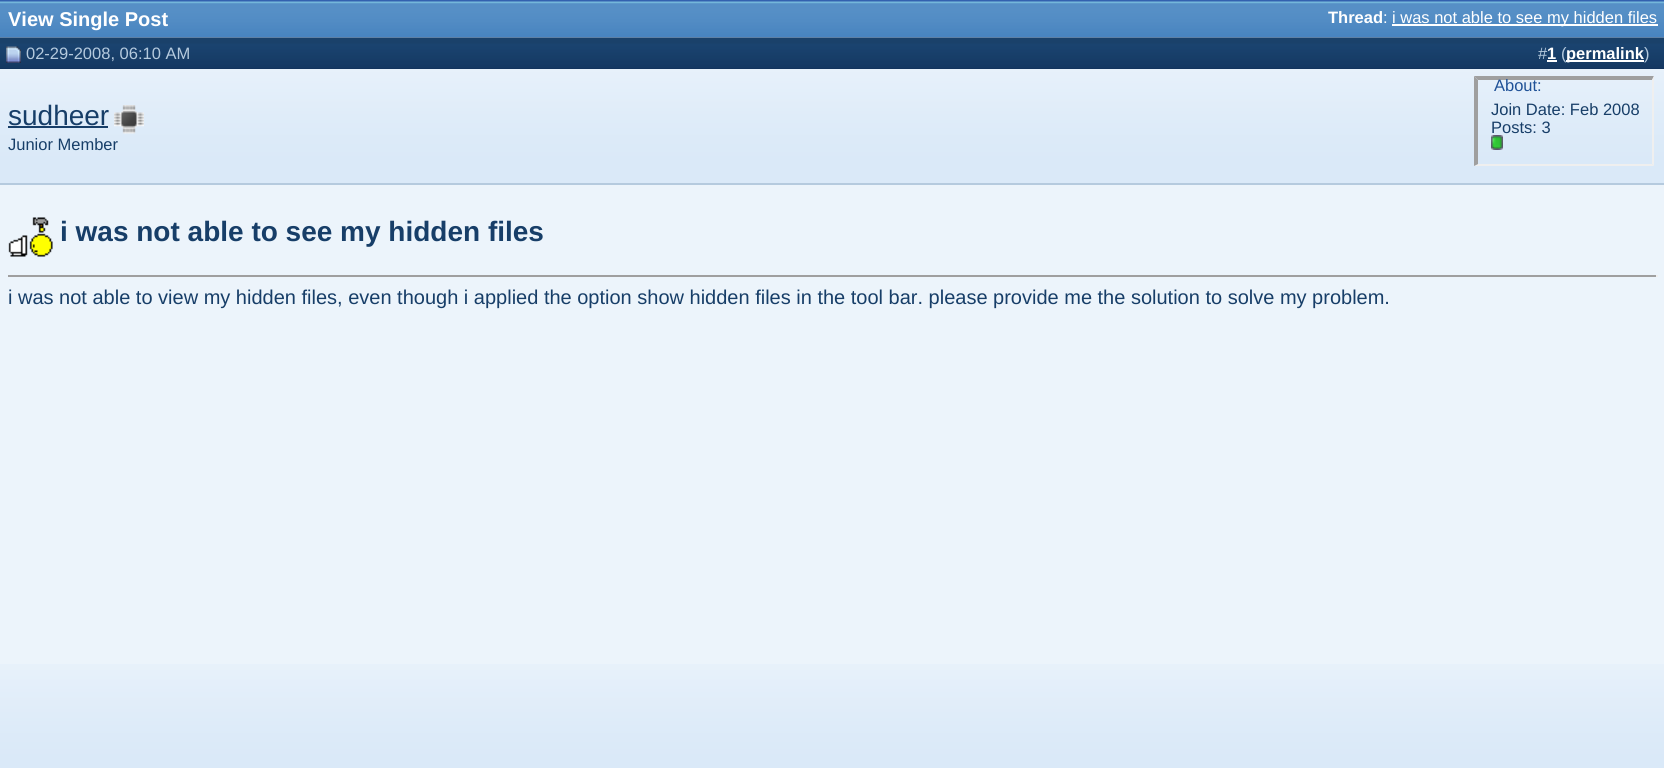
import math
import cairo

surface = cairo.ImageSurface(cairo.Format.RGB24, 1664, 768)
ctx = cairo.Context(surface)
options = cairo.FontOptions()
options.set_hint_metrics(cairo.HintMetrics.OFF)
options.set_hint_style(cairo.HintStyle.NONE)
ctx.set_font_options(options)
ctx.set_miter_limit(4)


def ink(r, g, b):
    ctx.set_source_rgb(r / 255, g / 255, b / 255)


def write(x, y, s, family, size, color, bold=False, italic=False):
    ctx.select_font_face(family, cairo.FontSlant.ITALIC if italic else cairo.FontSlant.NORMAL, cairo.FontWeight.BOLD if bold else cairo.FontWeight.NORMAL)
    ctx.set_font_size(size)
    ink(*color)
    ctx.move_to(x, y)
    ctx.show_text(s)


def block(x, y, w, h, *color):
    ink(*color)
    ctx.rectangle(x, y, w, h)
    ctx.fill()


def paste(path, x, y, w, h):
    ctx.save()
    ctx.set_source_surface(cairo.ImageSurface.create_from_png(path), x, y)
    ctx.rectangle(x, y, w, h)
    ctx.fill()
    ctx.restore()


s1 = dict(family="Liberation Sans", size=20, color=(255, 255, 255), bold=True)
s2 = dict(family="Liberation Sans", size=16.5, color=(255, 255, 255), bold=True)
s3 = dict(family="Liberation Sans", size=16.5, color=(255, 255, 255))
s4 = dict(family="Liberation Sans", size=16.5, color=(181, 202, 222))
s5 = dict(family="Liberation Sans", size=28, color=(23, 62, 104))
s6 = dict(family="Liberation Sans", size=16.5, color=(23, 62, 104))
s7 = dict(family="Liberation Sans", size=16.5, color=(31, 81, 151))
s8 = dict(family="Liberation Sans", size=28, color=(23, 62, 104), bold=True)
s9 = dict(family="Liberation Sans", size=20, color=(23, 62, 104))

ink(255, 255, 255)
ctx.paint()
paste("pic1.png", 0, 0, 1664, 38)
write(8, 26, "View Single Post", **s1)
write(1328, 23, "Thread", **s2)
write(1383, 23, ":", **s3)
block(1392, 24, 266, 2, 255, 255, 255)
write(1392, 23, "i was not able to see my hidden files", **s3)
block(0, 68, 1664, 1, 19, 52, 93)
paste("pic2.png", 0, 37, 1664, 31)
paste("pic3.png", 6, 46, 15, 17)
write(26, 59, "02-29-2008, 06:10 AM", **s4)
write(1538, 59, "#", **s4)
write(1547, 59, "1", **s2)
block(1547, 60, 10, 2, 255, 255, 255)
write(1561, 59, "(", **s4)
block(1566, 60, 78, 2, 255, 255, 255)
write(1566, 59, "permalink", **s2)
write(1644, 59, ")", **s4)
paste("pic4.png", 0, 69, 1664, 114)
block(0, 183, 1664, 2, 181, 202, 222)
write(8, 125, "sudheer", **s5)
block(8, 126, 100, 2, 23, 62, 104)
paste("pic5.png", 114, 105, 30, 29)
write(8, 150, "Junior Member", **s6)
ink(159, 159, 159)
ctx.new_path()
ctx.move_to(1474, 76)
ctx.line_to(1654, 76)
ctx.line_to(1652, 80)
ctx.line_to(1478, 80)
ctx.close_path()
ctx.fill()
ink(239, 239, 239)
ctx.new_path()
ctx.move_to(1654, 76)
ctx.line_to(1654, 166)
ctx.line_to(1652, 164)
ctx.line_to(1652, 80)
ctx.close_path()
ctx.fill()
ctx.new_path()
ctx.move_to(1654, 166)
ctx.line_to(1474, 166)
ctx.line_to(1478, 164)
ctx.line_to(1652, 164)
ctx.close_path()
ctx.fill()
ink(159, 159, 159)
ctx.new_path()
ctx.move_to(1474, 166)
ctx.line_to(1474, 76)
ctx.line_to(1478, 80)
ctx.line_to(1478, 164)
ctx.close_path()
ctx.fill()
write(1494, 91, "About:", **s7)
write(1491, 115, "Join Date: Feb 2008", **s6)
write(1491, 133, "Posts: 3", **s6)
paste("pic6.png", 1491, 135, 12, 15)
block(0, 185, 1664, 479, 236, 244, 251)
paste("pic7.png", 0, 664, 1664, 104)
paste("pic8.png", 8, 217, 45, 40)
write(60, 241, "i was not able to see my hidden files", **s8)
block(8, 275, 1650, 2, 159, 159, 159)
block(1656, 275, 2, 2, 238, 238, 238)
write(8, 304, "i was not able to view my hidden files, even though i applied the option show hidden files in the tool bar. please provide me the solution to solve my problem.", **s9)
surface.write_to_png("screenshot.png")
